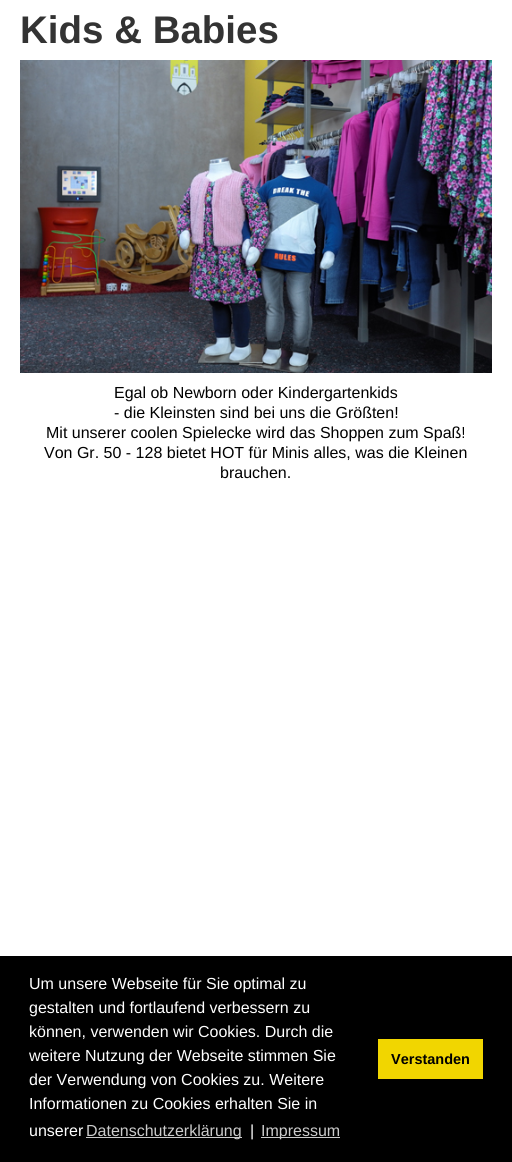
import math
import cairo

surface = cairo.ImageSurface(cairo.Format.RGB24, 512, 1162)
ctx = cairo.Context(surface)
options = cairo.FontOptions()
options.set_hint_metrics(cairo.HintMetrics.OFF)
options.set_hint_style(cairo.HintStyle.NONE)
ctx.set_font_options(options)
ctx.set_miter_limit(4)


def ink(r, g, b):
    ctx.set_source_rgb(r / 255, g / 255, b / 255)


def write(x, y, s, family, size, color, bold=False, italic=False):
    ctx.select_font_face(family, cairo.FontSlant.ITALIC if italic else cairo.FontSlant.NORMAL, cairo.FontWeight.BOLD if bold else cairo.FontWeight.NORMAL)
    ctx.set_font_size(size)
    ink(*color)
    ctx.move_to(x, y)
    ctx.show_text(s)


def block(x, y, w, h, *color):
    ink(*color)
    ctx.rectangle(x, y, w, h)
    ctx.fill()


def paste(path, x, y, w, h):
    ctx.save()
    ctx.set_source_surface(cairo.ImageSurface.create_from_png(path), x, y)
    ctx.rectangle(x, y, w, h)
    ctx.fill()
    ctx.restore()


s1 = dict(family="Liberation Sans", size=38.5, color=(51, 51, 51), bold=True)
s2 = dict(family="Liberation Sans", size=16, color=(0, 0, 0))
s3 = dict(family="Liberation Sans", size=16, color=(255, 255, 255))
s4 = dict(family="Liberation Sans", size=16, color=(204, 204, 204))
s5 = dict(family="Liberation Sans", size=14.5, color=(0, 0, 0), bold=True)

ink(255, 255, 255)
ctx.paint()
write(20, 43, "Kids & Babies", **s1)
paste("pic1.png", 20, 60, 472, 313)
write(114, 398, "Egal ob Newborn oder Kindergartenkids", **s2)
write(114, 418, "- die Kleinsten sind bei uns die Größten!", **s2)
write(46, 438, "Mit unserer coolen Spielecke wird das Shoppen zum Spaß!", **s2)
write(44, 458, "Von Gr. 50 - 128 bietet HOT für Minis alles, was die Kleinen", **s2)
write(220, 478, "brauchen.", **s2)
block(0, 956, 512, 206, 0, 0, 0)
write(29, 989, "Um unsere Webseite für Sie optimal zu", **s3)
write(29, 1013, "gestalten und fortlaufend verbessern zu", **s3)
write(29, 1037, "können, verwenden wir Cookies. Durch die", **s3)
write(29, 1061, "weitere Nutzung der Webseite stimmen Sie", **s3)
write(29, 1085, "der Verwendung von Cookies zu. Weitere", **s3)
write(29, 1109, "Informationen zu Cookies erhalten Sie in", **s3)
write(29, 1136, "unserer", **s3)
block(86, 1137, 156, 1, 204, 204, 204)
write(86, 1136, "Datenschutzerklärung", **s4)
write(250, 1136, "|", **s3)
block(261, 1137, 79, 1, 204, 204, 204)
write(261, 1136, "Impressum", **s4)
block(378, 1039, 105, 40, 241, 214, 0)
write(391, 1064, "Verstanden", **s5)
surface.write_to_png("screenshot.png")
